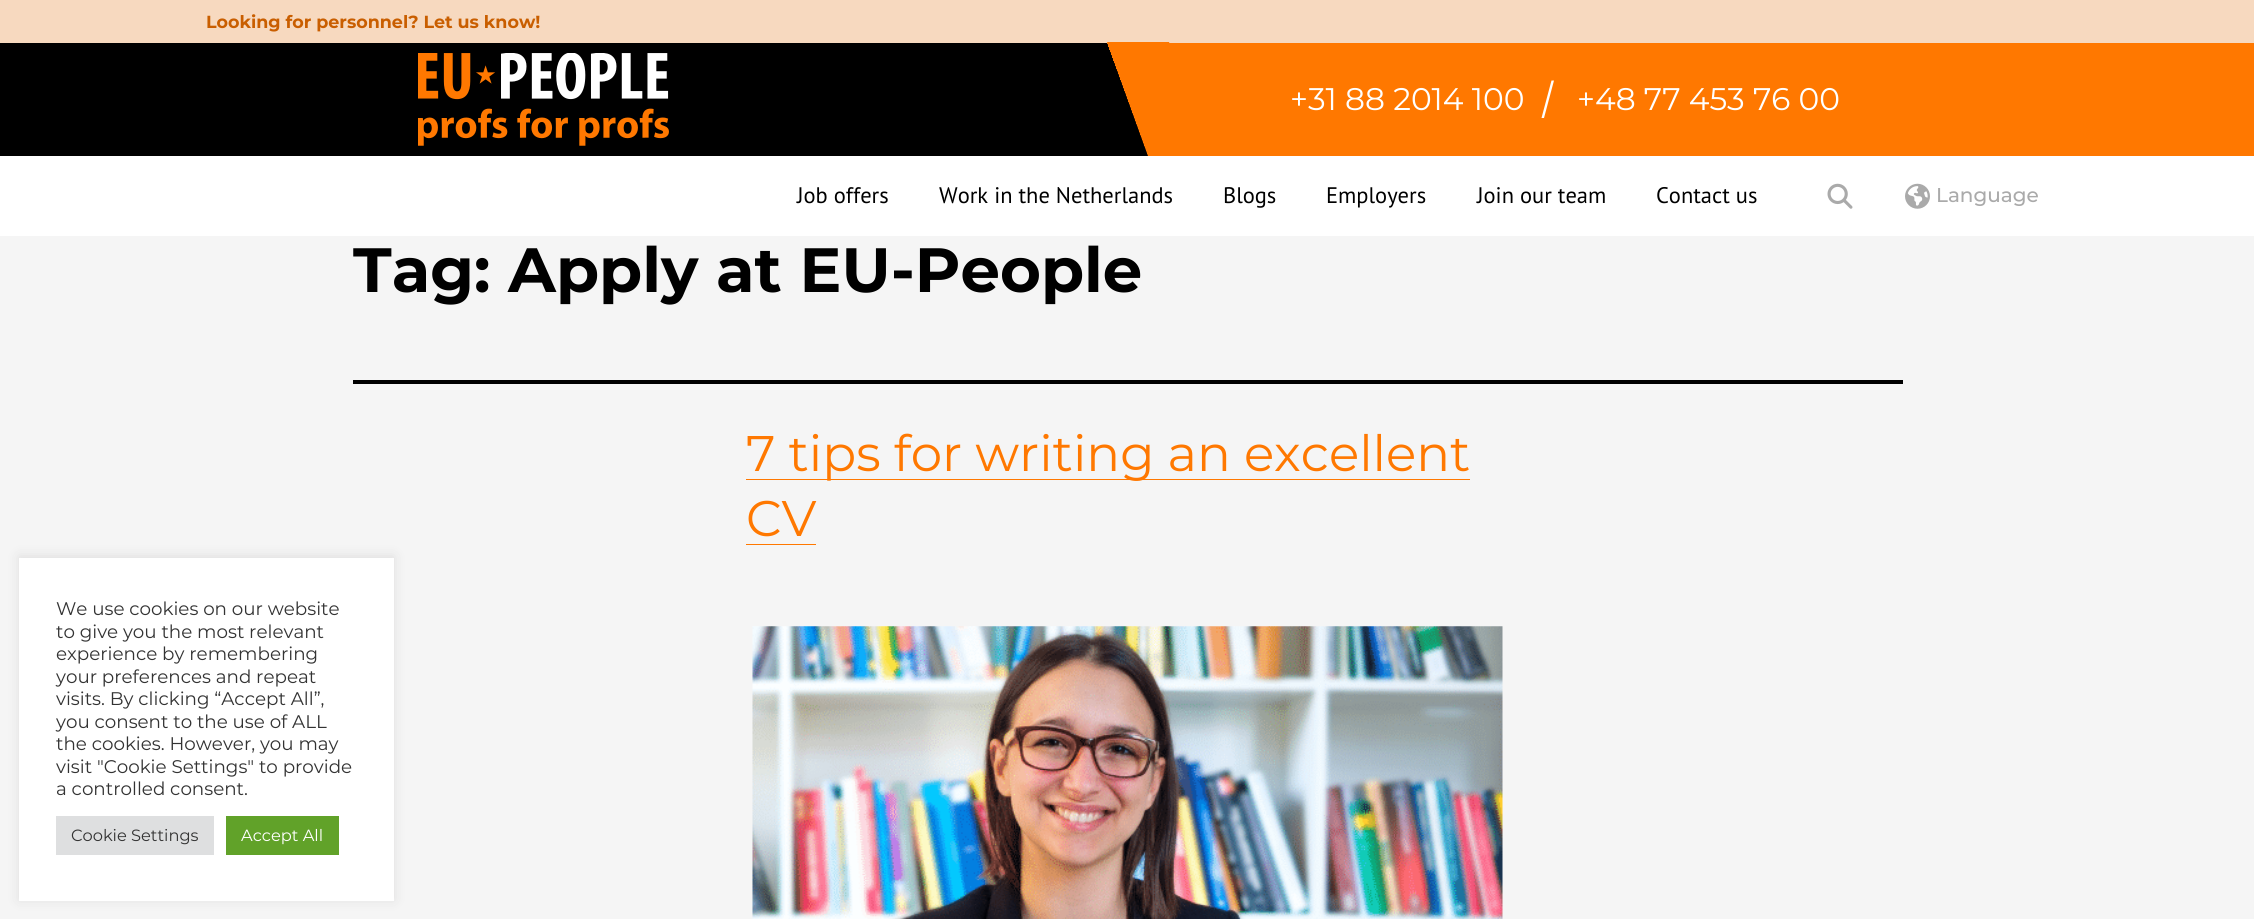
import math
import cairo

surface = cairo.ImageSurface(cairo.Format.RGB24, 2254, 919)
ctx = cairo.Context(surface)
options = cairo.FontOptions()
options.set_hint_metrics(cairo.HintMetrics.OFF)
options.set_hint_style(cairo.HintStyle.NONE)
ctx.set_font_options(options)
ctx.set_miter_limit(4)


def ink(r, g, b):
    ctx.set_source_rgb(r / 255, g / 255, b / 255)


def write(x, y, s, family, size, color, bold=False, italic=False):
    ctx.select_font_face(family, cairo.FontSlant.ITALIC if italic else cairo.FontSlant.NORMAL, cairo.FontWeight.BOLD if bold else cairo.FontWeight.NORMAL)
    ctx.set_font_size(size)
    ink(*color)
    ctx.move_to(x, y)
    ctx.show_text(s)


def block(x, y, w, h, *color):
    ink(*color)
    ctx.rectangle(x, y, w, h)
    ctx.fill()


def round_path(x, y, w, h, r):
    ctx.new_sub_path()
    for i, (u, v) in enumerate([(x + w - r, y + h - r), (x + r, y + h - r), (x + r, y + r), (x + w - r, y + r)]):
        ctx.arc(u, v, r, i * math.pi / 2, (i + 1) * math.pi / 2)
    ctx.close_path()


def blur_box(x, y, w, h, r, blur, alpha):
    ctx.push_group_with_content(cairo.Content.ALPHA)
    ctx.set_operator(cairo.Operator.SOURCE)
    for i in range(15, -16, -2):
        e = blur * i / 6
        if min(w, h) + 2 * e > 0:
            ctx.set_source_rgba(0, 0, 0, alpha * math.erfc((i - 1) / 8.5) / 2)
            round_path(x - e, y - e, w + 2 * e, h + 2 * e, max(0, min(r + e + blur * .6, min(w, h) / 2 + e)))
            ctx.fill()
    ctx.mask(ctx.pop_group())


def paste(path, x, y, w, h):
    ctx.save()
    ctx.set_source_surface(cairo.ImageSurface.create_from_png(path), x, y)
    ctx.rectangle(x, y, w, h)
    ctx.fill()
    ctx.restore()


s1 = dict(family="Montserrat", size=17.5, color=(201, 94, 0), bold=True)
s2 = dict(family="Montserrat", size=31.25, color=(255, 255, 255))
s3 = dict(family="PT Sans", size=22.5, color=(0, 0, 0))
s4 = dict(family="Montserrat Medium", size=20, color=(170, 170, 170))
s5 = dict(family="Montserrat", size=62.5, color=(0, 0, 0), bold=True)
s6 = dict(family="Montserrat", size=50, color=(255, 120, 0))
s7 = dict(family="Montserrat", size=18.3, color=(51, 51, 51))
s8 = dict(family="Montserrat", size=16.25, color=(51, 51, 51))
s9 = dict(family="Montserrat", size=16.25, color=(255, 255, 255))

ink(245, 245, 245)
ctx.paint()
block(0, 0, 2254, 43, 247, 217, 191)
write(206, 28, "Looking for personnel? Let us know!", **s1)
gradient = cairo.LinearGradient(114, 468, 2141, -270)
gradient.add_color_stop_rgba(0.5, 0, 0, 0, 1)
gradient.add_color_stop_rgba(0.5, 1, 0.471, 0, 1)
ctx.set_source(gradient)
ctx.rectangle(0, 43, 2254, 113)
ctx.fill()
ink(255, 120, 0)
ctx.new_path()
ctx.move_to(1107, 42)
ctx.line_to(1169, 42)
ctx.line_to(1211, 156)
ctx.line_to(1148, 156)
ctx.close_path()
ctx.fill()
paste("pic1.png", 418, 53, 251, 93)
write(1290, 110, "+31 88 2014 100", **s2)
ctx.new_path()
ctx.move_to(1551.5, 80.5)
ctx.line_to(1554, 80.5)
ctx.line_to(1544, 118)
ctx.line_to(1541.5, 118)
ctx.close_path()
ctx.fill()
write(1577, 110, "+48 77 453 76 00", **s2)
block(0, 156, 2254, 80, 255, 255, 255)
write(797, 203, "Job offers", **s3)
write(939, 203, "Work in the Netherlands", **s3)
write(1223, 203, "Blogs", **s3)
write(1326, 203, "Employers", **s3)
write(1477, 203, "Join our team", **s3)
write(1656, 203, "Contact us", **s3)
paste("pic2.png", 1827, 183, 26, 26)
paste("pic3.png", 1905, 183, 25, 26)
write(1936, 202, "Language", **s4)
block(353, 380, 1550, 4, 0, 0, 0)
write(353, 292, "Tag: Apply at EU-People", **s5)
block(746, 479, 724, 1, 255, 120, 0)
write(746, 471, "7 tips for writing an excellent", **s6)
write(746, 536, "CV", **s6)
block(746, 544, 70, 1, 255, 120, 0)
paste("pic4.png", 752, 626, 751, 293)
ink(172, 171, 171)
blur_box(19, 556, 375, 344, 0, 6, 0.3)
block(19, 558, 375, 343, 255, 255, 255)
write(56, 615, "We use cookies on our website", **s7)
write(56, 638, "to give you the most relevant", **s7)
write(56, 660, "experience by remembering", **s7)
write(56, 683, "your preferences and repeat", **s7)
write(56, 705, "visits. By clicking “Accept All”,", **s7)
write(56, 728, "you consent to the use of ALL", **s7)
write(56, 750, "the cookies. However, you may", **s7)
write(56, 773, "visit \"Cookie Settings\" to provide", **s7)
write(56, 795, "a controlled consent.", **s7)
block(56, 816, 158, 39, 222, 223, 224)
write(71, 841, "Cookie Settings", **s8)
block(226, 816, 113, 39, 97, 162, 41)
write(241, 841, "Accept All", **s9)
surface.write_to_png("screenshot.png")
